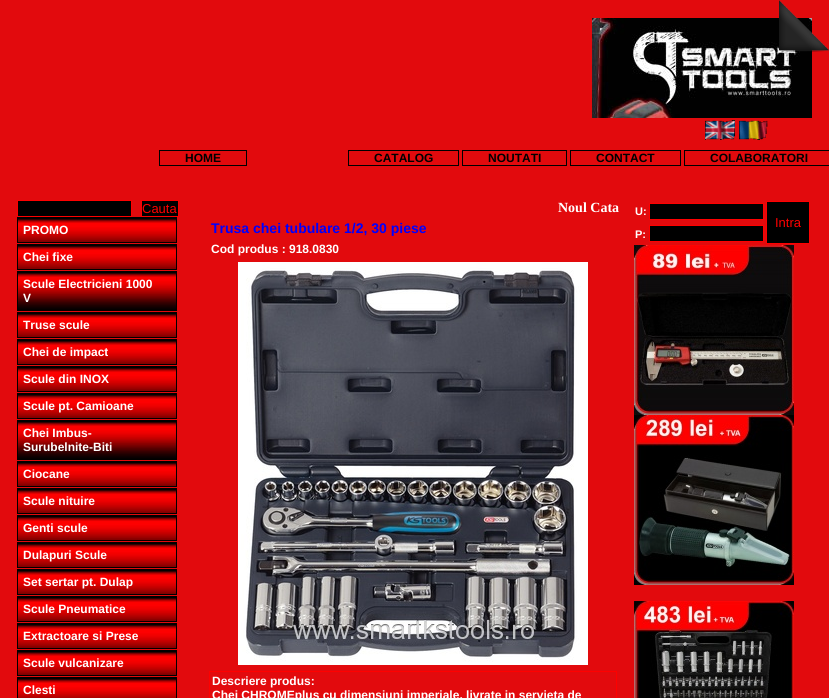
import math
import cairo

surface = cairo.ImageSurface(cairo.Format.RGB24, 829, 698)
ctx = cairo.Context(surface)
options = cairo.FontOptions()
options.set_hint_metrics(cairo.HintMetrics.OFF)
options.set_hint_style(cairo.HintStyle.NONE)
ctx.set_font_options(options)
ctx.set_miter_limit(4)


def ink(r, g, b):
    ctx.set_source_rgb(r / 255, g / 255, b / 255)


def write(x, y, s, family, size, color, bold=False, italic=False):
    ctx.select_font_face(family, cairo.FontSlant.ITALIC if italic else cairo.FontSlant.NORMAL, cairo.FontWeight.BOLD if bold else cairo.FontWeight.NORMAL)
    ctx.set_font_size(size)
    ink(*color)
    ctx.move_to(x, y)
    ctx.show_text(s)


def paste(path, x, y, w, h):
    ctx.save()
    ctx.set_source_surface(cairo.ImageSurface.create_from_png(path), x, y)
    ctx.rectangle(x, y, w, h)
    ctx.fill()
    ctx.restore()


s1 = dict(family="Liberation Sans", size=12, color=(0, 0, 0), bold=True)
s2 = dict(family="Liberation Sans", size=13, color=(255, 0, 0))
s3 = dict(family="Liberation Sans", size=12, color=(255, 255, 255), bold=True)
s4 = dict(family="Liberation Serif", size=14, color=(255, 255, 255), bold=True)
s5 = dict(family="Liberation Sans", size=14, color=(0, 0, 255), bold=True)
s6 = dict(family="Liberation Sans", size=11, color=(255, 255, 255), bold=True)

ink(226, 10, 13)
ctx.paint()
paste("pic2.png", 592, 18, 220, 100)
paste("pic1.png", 779, 0, 50, 52)
paste("pic3.png", 705, 120, 30, 20)
paste("pic4.png", 739, 120, 29, 20)
ctx.rectangle(159.5, 150.5, 87, 15)
ink(0, 0, 0)
ctx.set_line_width(1)
ctx.stroke()
write(185, 162, "HOME", **s1)
ctx.rectangle(348.5, 150.5, 110, 15)
ctx.stroke()
write(374, 162, "CATALOG", **s1)
ctx.rectangle(462.5, 150.5, 104, 15)
ctx.stroke()
write(488, 162, "NOUTATI", **s1)
ctx.rectangle(570.5, 150.5, 110, 15)
ctx.stroke()
write(596, 162, "CONTACT", **s1)
ctx.rectangle(684.5, 150.5, 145, 15)
ctx.stroke()
write(710, 162, "COLABORATORI", **s1)
ctx.rectangle(17.5, 200.5, 114, 16)
ctx.fill_preserve()
ink(255, 0, 0)
ctx.stroke()
ink(0, 0, 0)
ctx.rectangle(141.5, 200.5, 37, 16)
ctx.fill_preserve()
ink(255, 0, 0)
ctx.stroke()
write(142, 213, "Cauta", **s2)
paste("pic5.png", 18, 218, 158, 24)
ctx.rectangle(17.5, 217.5, 159, 25)
ink(0, 0, 0)
ctx.stroke()
write(23, 234, "PROMO", **s3)
paste("pic5.png", 18, 245, 158, 24)
ctx.rectangle(17.5, 244.5, 159, 25)
ink(0, 0, 0)
ctx.stroke()
write(23, 261, "Chei fixe", **s3)
paste("pic6.png", 18, 272, 158, 38)
ctx.rectangle(17.5, 271.5, 159, 39)
ink(0, 0, 0)
ctx.stroke()
write(23, 288, "Scule Electricieni 1000", **s3)
write(23, 302, "V", **s3)
paste("pic5.png", 18, 313, 158, 24)
ctx.rectangle(17.5, 312.5, 159, 25)
ink(0, 0, 0)
ctx.stroke()
write(23, 329, "Truse scule", **s3)
paste("pic5.png", 18, 340, 158, 24)
ctx.rectangle(17.5, 339.5, 159, 25)
ink(0, 0, 0)
ctx.stroke()
write(23, 356, "Chei de impact", **s3)
paste("pic5.png", 18, 367, 158, 24)
ctx.rectangle(17.5, 366.5, 159, 25)
ink(0, 0, 0)
ctx.stroke()
write(23, 383, "Scule din INOX", **s3)
paste("pic5.png", 18, 394, 158, 24)
ctx.rectangle(17.5, 393.5, 159, 25)
ink(0, 0, 0)
ctx.stroke()
write(23, 410, "Scule pt. Camioane", **s3)
paste("pic6.png", 18, 421, 158, 38)
ctx.rectangle(17.5, 420.5, 159, 39)
ink(0, 0, 0)
ctx.stroke()
write(23, 437, "Chei Imbus-", **s3)
write(23, 451, "Surubelnite-Biti", **s3)
paste("pic5.png", 18, 462, 158, 24)
ctx.rectangle(17.5, 461.5, 159, 25)
ink(0, 0, 0)
ctx.stroke()
write(23, 478, "Ciocane", **s3)
paste("pic5.png", 18, 489, 158, 24)
ctx.rectangle(17.5, 488.5, 159, 25)
ink(0, 0, 0)
ctx.stroke()
write(23, 505, "Scule nituire", **s3)
paste("pic5.png", 18, 516, 158, 24)
ctx.rectangle(17.5, 515.5, 159, 25)
ink(0, 0, 0)
ctx.stroke()
write(23, 532, "Genti scule", **s3)
paste("pic5.png", 18, 543, 158, 24)
ctx.rectangle(17.5, 542.5, 159, 25)
ink(0, 0, 0)
ctx.stroke()
write(23, 559, "Dulapuri Scule", **s3)
paste("pic5.png", 18, 570, 158, 24)
ctx.rectangle(17.5, 569.5, 159, 25)
ink(0, 0, 0)
ctx.stroke()
write(23, 586, "Set sertar pt. Dulap", **s3)
paste("pic5.png", 18, 597, 158, 24)
ctx.rectangle(17.5, 596.5, 159, 25)
ink(0, 0, 0)
ctx.stroke()
write(23, 613, "Scule Pneumatice", **s3)
paste("pic5.png", 18, 624, 158, 24)
ctx.rectangle(17.5, 623.5, 159, 25)
ink(0, 0, 0)
ctx.stroke()
write(23, 640, "Extractoare si Prese", **s3)
paste("pic5.png", 18, 651, 158, 24)
ctx.rectangle(17.5, 650.5, 159, 25)
ink(0, 0, 0)
ctx.stroke()
write(23, 667, "Scule vulcanizare", **s3)
paste("pic7.png", 18, 678, 158, 20)
ctx.rectangle(17.5, 677.5, 159, 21)
ink(0, 0, 0)
ctx.stroke()
write(23, 694, "Clesti", **s3)
write(558, 212, "Noul Cata", **s4)
write(211, 233, "Trusa chei tubulare 1/2, 30 piese", **s5)
write(211, 253, "Cod produs : 918.0830", **s3)
paste("pic8.png", 238, 262, 350, 403)
ctx.rectangle(209.5, 671.5, 407, 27)
ink(255, 0, 0)
ctx.stroke()
write(212, 685, "Descriere produs:", **s3)
write(212, 699, "Chei CHROMEplus cu dimensiuni imperiale, livrate in servieta de", **s3)
write(635, 215, "U:", **s6)
ink(0, 0, 0)
ctx.rectangle(649.5, 203.5, 114, 16)
ctx.fill_preserve()
ink(255, 0, 0)
ctx.stroke()
ink(0, 0, 0)
ctx.rectangle(766.5, 201.5, 43, 42)
ctx.fill_preserve()
ink(255, 0, 0)
ctx.stroke()
write(775, 227, "Intra", **s2)
write(635, 238, "P:", **s6)
ink(0, 0, 0)
ctx.rectangle(649.5, 225.5, 114, 16)
ctx.fill_preserve()
ink(255, 0, 0)
ctx.stroke()
paste("pic9.png", 634, 245, 160, 170)
paste("pic10.png", 634, 415, 160, 170)
paste("pic11.png", 634, 601, 160, 97)
surface.write_to_png("screenshot.png")
